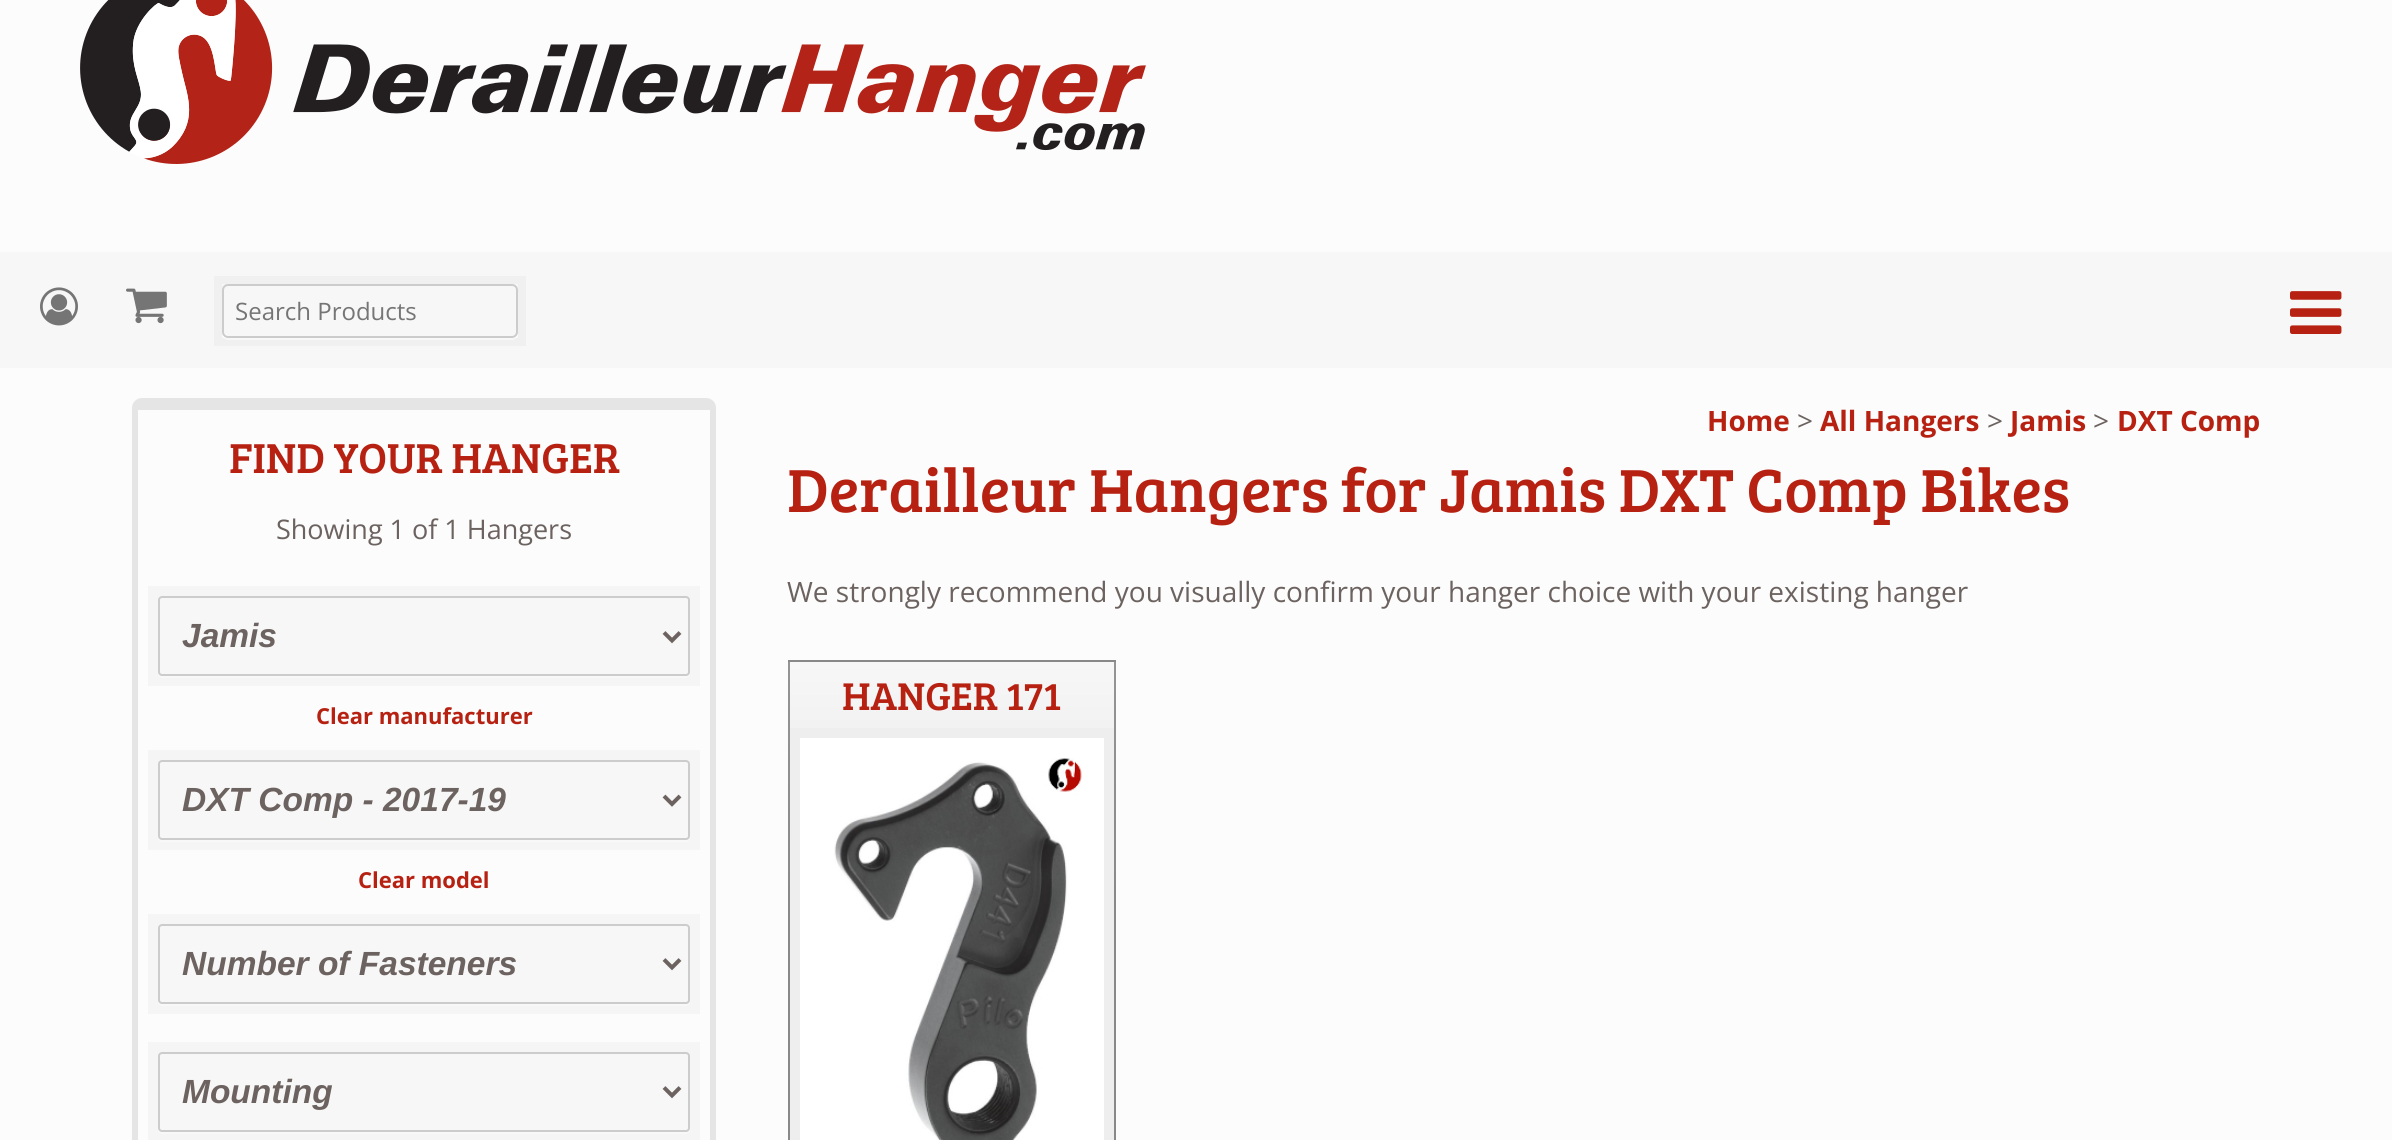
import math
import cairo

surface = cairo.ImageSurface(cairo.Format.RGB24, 2392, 1140)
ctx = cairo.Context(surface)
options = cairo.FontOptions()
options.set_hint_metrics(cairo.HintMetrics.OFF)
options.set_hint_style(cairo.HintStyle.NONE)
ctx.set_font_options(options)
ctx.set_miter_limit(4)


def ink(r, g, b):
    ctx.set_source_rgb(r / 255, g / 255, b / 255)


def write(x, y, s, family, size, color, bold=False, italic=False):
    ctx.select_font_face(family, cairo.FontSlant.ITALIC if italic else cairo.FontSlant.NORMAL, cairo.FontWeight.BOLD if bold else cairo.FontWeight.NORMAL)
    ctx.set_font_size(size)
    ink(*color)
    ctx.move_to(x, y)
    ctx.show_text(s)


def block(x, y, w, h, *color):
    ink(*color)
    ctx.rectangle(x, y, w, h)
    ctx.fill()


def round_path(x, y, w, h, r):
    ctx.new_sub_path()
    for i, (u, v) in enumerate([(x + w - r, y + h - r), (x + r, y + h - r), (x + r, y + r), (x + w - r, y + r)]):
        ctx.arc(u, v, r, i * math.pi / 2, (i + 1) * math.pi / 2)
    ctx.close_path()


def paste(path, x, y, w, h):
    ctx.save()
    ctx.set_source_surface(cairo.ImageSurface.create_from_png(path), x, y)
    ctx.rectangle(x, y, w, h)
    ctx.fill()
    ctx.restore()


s1 = dict(family="Open Sans", size=24, color=(117, 117, 117))
s2 = dict(family="Bree Serif", size=43.25, color=(183, 33, 18))
s3 = dict(family="Open Sans", size=27, color=(108, 99, 96))
s4 = dict(family="Liberation Sans", size=33.5, color=(108, 99, 96), bold=True, italic=True)
s5 = dict(family="Open Sans", size=22, color=(183, 33, 18), bold=True)
s6 = dict(family="Open Sans", size=28, color=(183, 33, 18), bold=True)
s7 = dict(family="Open Sans", size=28, color=(108, 99, 96))
s8 = dict(family="Bree Serif", size=62.8, color=(183, 33, 18))
s9 = dict(family="Bree Serif", size=40, color=(183, 33, 18))

ink(252, 252, 252)
ctx.paint()
paste("pic1.png", 80, 0, 1066, 164)
block(0, 252, 2392, 116, 247, 247, 247)
paste("pic2.png", 40, 287, 38, 39)
paste("pic3.png", 126, 288, 41, 36)
ink(255, 255, 255)
ctx.new_path()
ctx.move_to(222, 332)
ctx.line_to(222, 334)
ctx.curve_to(222, 337, 225, 340, 228, 340)
ctx.line_to(512, 340)
ctx.curve_to(515, 340, 518, 337, 518, 334)
ctx.line_to(518, 332)
ctx.curve_to(518, 335, 515, 338, 512, 338)
ctx.line_to(228, 338)
ctx.curve_to(225, 338, 222, 335, 222, 332)
ctx.close_path()
ctx.fill()
ctx.rectangle(218, 280, 304, 62)
ctx.set_source_rgba(0, 0, 0, 0.03)
ctx.set_line_width(8)
ctx.stroke()
round_path(223, 285, 294, 52, 5)
ink(204, 204, 204)
ctx.set_line_width(2)
ctx.stroke()
write(235, 320, "Search Products", **s1)
paste("pic4.png", 2290, 291, 52, 43)
ctx.new_path()
ctx.move_to(142, 401)
ctx.line_to(706, 401)
ctx.curve_to(710, 401, 713, 404, 713, 408)
ctx.line_to(713, 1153)
ctx.line_to(135, 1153)
ctx.line_to(135, 408)
ctx.curve_to(135, 404, 138, 401, 142, 401)
ctx.close_path()
ink(229, 229, 229)
ctx.set_line_width(6)
ctx.stroke()
block(138, 404, 574, 6, 229, 229, 229)
write(229, 473, "FIND YOUR HANGER", **s2)
write(276, 539, "Showing 1 of 1 Hangers", **s3)
ink(255, 255, 255)
ctx.new_path()
ctx.move_to(158, 672)
ctx.line_to(158, 674)
ctx.curve_to(158, 676, 160, 678, 162, 678)
ctx.line_to(686, 678)
ctx.curve_to(688, 678, 690, 676, 690, 674)
ctx.line_to(690, 672)
ctx.curve_to(690, 674, 688, 676, 686, 676)
ctx.line_to(162, 676)
ctx.curve_to(160, 676, 158, 674, 158, 672)
ctx.close_path()
ctx.fill()
ctx.rectangle(153.5, 591.5, 541, 89)
ctx.set_source_rgba(0, 0, 0, 0.03)
ctx.set_line_width(11)
ctx.stroke()
ink(247, 247, 247)
round_path(159, 597, 530, 78, 3)
ctx.fill_preserve()
ink(204, 204, 204)
ctx.set_line_width(2)
ctx.stroke()
ctx.new_path()
ctx.move_to(664, 632.5)
ctx.line_to(672, 640.5)
ctx.line_to(680, 632.5)
ink(108, 99, 96)
ctx.set_line_width(4)
ctx.stroke()
write(182, 647, "Jamis", **s4)
write(316, 724, "Clear manufacturer", **s5)
ink(255, 255, 255)
ctx.new_path()
ctx.move_to(158, 836)
ctx.line_to(158, 838)
ctx.curve_to(158, 840, 160, 842, 162, 842)
ctx.line_to(686, 842)
ctx.curve_to(688, 842, 690, 840, 690, 838)
ctx.line_to(690, 836)
ctx.curve_to(690, 838, 688, 840, 686, 840)
ctx.line_to(162, 840)
ctx.curve_to(160, 840, 158, 838, 158, 836)
ctx.close_path()
ctx.fill()
ctx.rectangle(153.5, 755.5, 541, 89)
ctx.set_source_rgba(0, 0, 0, 0.03)
ctx.set_line_width(11)
ctx.stroke()
ink(247, 247, 247)
round_path(159, 761, 530, 78, 3)
ctx.fill_preserve()
ink(204, 204, 204)
ctx.set_line_width(2)
ctx.stroke()
ctx.new_path()
ctx.move_to(664, 796)
ctx.line_to(672, 804)
ctx.line_to(680, 796)
ink(108, 99, 96)
ctx.set_line_width(4)
ctx.stroke()
write(182, 811, "DXT Comp - 2017-19", **s4)
write(358, 888, "Clear model", **s5)
ink(255, 255, 255)
ctx.new_path()
ctx.move_to(158, 1000)
ctx.line_to(158, 1002)
ctx.curve_to(158, 1004, 160, 1006, 162, 1006)
ctx.line_to(686, 1006)
ctx.curve_to(688, 1006, 690, 1004, 690, 1002)
ctx.line_to(690, 1000)
ctx.curve_to(690, 1002, 688, 1004, 686, 1004)
ctx.line_to(162, 1004)
ctx.curve_to(160, 1004, 158, 1002, 158, 1000)
ctx.close_path()
ctx.fill()
ctx.rectangle(153.5, 919.5, 541, 89)
ctx.set_source_rgba(0, 0, 0, 0.03)
ctx.set_line_width(11)
ctx.stroke()
ink(247, 247, 247)
round_path(159, 925, 530, 78, 3)
ctx.fill_preserve()
ink(204, 204, 204)
ctx.set_line_width(2)
ctx.stroke()
ctx.new_path()
ctx.move_to(664, 959.5)
ctx.line_to(672, 967.5)
ctx.line_to(680, 959.5)
ink(108, 99, 96)
ctx.set_line_width(4)
ctx.stroke()
write(182, 975, "Number of Fasteners", **s4)
ink(255, 255, 255)
ctx.new_path()
ctx.move_to(158, 1128)
ctx.line_to(158, 1130)
ctx.curve_to(158, 1132, 160, 1134, 162, 1134)
ctx.line_to(686, 1134)
ctx.curve_to(688, 1134, 690, 1132, 690, 1130)
ctx.line_to(690, 1128)
ctx.curve_to(690, 1130, 688, 1132, 686, 1132)
ctx.line_to(162, 1132)
ctx.curve_to(160, 1132, 158, 1130, 158, 1128)
ctx.close_path()
ctx.fill()
ctx.rectangle(153.5, 1047.5, 541, 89)
ctx.set_source_rgba(0, 0, 0, 0.03)
ctx.set_line_width(11)
ctx.stroke()
ink(247, 247, 247)
round_path(159, 1053, 530, 78, 3)
ctx.fill_preserve()
ink(204, 204, 204)
ctx.set_line_width(2)
ctx.stroke()
ctx.new_path()
ctx.move_to(664, 1087.5)
ctx.line_to(672, 1095.5)
ctx.line_to(680, 1087.5)
ink(108, 99, 96)
ctx.set_line_width(4)
ctx.stroke()
write(182, 1103, "Mounting", **s4)
write(1707, 431, "Home", **s6)
write(1797, 431, ">", **s7)
write(1820, 431, "All Hangers", **s6)
write(1987, 431, ">", **s7)
write(2010, 431, "Jamis", **s6)
write(2093, 431, ">", **s7)
write(2117, 431, "DXT Comp", **s6)
write(787, 512, "Derailleur Hangers for Jamis DXT Comp Bikes", **s8)
write(787, 602, "We strongly recommend you visually confirm your hanger choice with your existing hanger", **s7)
gradient = cairo.LinearGradient(952, -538, 952, 662)
gradient.add_color_stop_rgba(0, 0.969, 0.969, 0.969, 1)
gradient.add_color_stop_rgba(0.19, 0.898, 0.898, 0.898, 1)
gradient.add_color_stop_rgba(1, 0.898, 0.898, 0.898, 1)
ctx.set_source(gradient)
ctx.rectangle(788, 660, 328, 2)
ctx.fill()
gradient = cairo.LinearGradient(952, 662, 952, 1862)
gradient.add_color_stop_rgba(0, 0.969, 0.969, 0.969, 1)
gradient.add_color_stop_rgba(0.19, 0.898, 0.898, 0.898, 1)
gradient.add_color_stop_rgba(1, 0.898, 0.898, 0.898, 1)
ctx.set_source(gradient)
ctx.rectangle(788, 662, 328, 478)
ctx.fill()
ctx.rectangle(789, 661, 326, 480)
ctx.set_source_rgba(0, 0, 0, 0.4)
ctx.set_line_width(2)
ctx.stroke()
write(842, 710, "HANGER 171", **s9)
ink(255, 255, 255)
ctx.rectangle(795, 733, 314, 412)
ctx.fill_preserve()
ink(238, 238, 238)
ctx.set_line_width(10)
ctx.stroke()
paste("pic5.png", 834, 758, 248, 382)
surface.write_to_png("screenshot.png")
